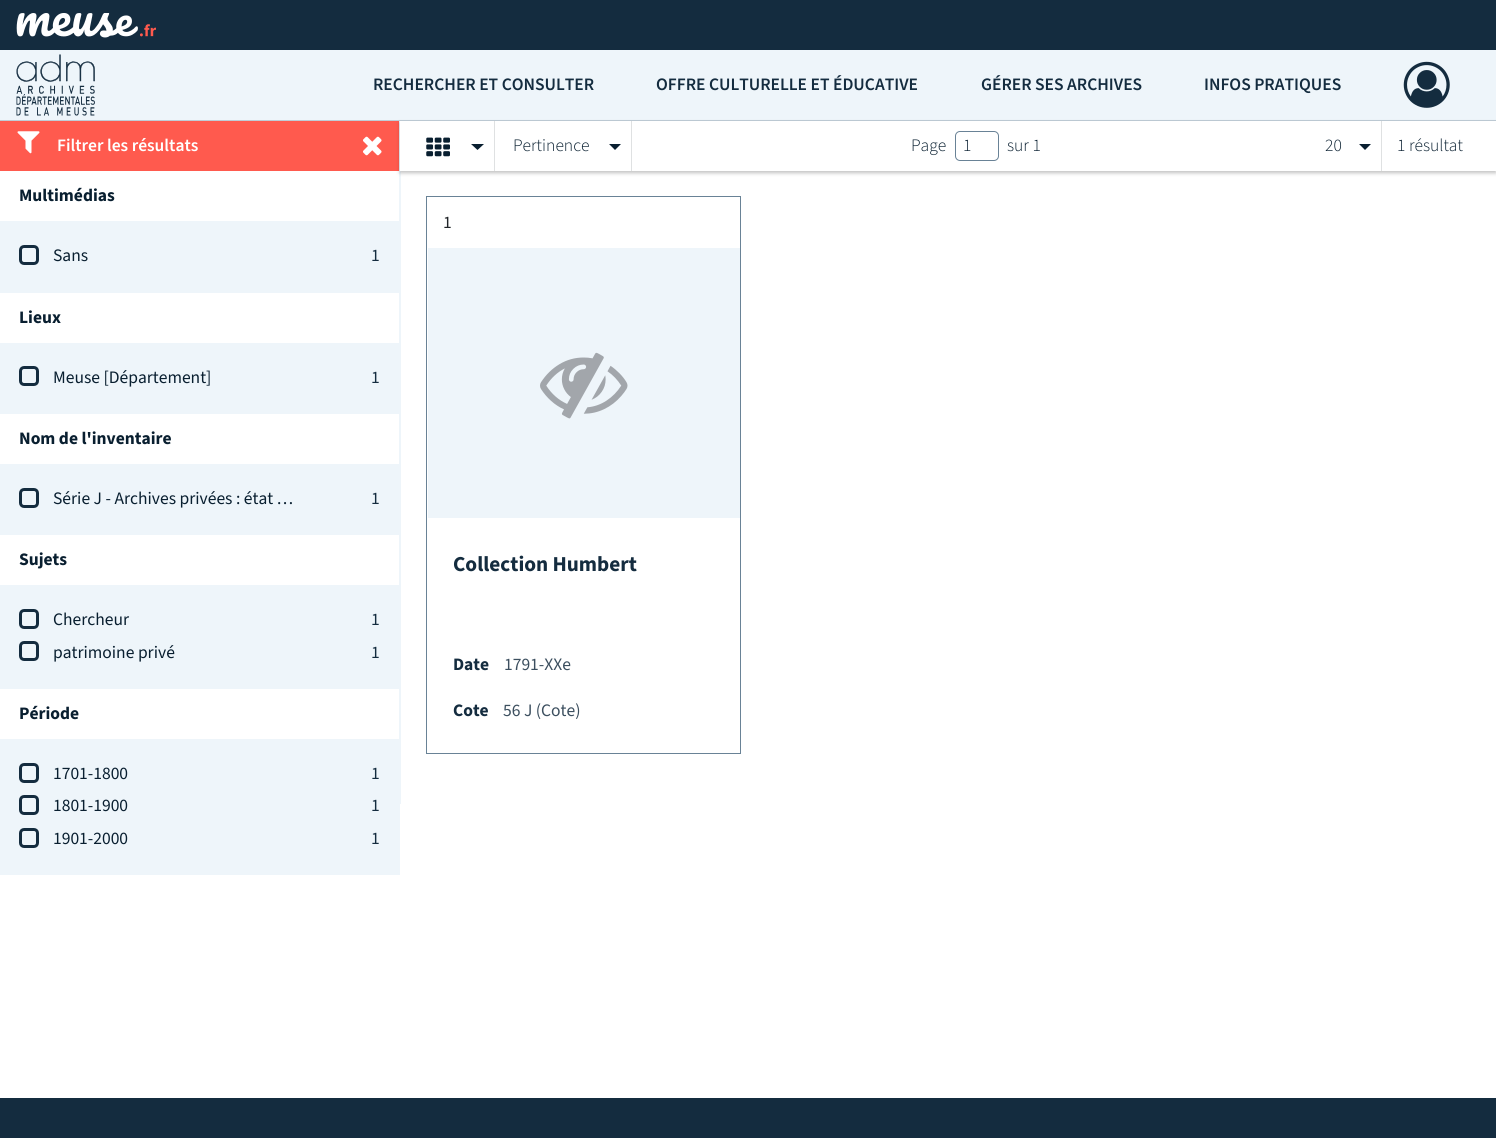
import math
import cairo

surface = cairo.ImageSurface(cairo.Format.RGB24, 1496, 1138)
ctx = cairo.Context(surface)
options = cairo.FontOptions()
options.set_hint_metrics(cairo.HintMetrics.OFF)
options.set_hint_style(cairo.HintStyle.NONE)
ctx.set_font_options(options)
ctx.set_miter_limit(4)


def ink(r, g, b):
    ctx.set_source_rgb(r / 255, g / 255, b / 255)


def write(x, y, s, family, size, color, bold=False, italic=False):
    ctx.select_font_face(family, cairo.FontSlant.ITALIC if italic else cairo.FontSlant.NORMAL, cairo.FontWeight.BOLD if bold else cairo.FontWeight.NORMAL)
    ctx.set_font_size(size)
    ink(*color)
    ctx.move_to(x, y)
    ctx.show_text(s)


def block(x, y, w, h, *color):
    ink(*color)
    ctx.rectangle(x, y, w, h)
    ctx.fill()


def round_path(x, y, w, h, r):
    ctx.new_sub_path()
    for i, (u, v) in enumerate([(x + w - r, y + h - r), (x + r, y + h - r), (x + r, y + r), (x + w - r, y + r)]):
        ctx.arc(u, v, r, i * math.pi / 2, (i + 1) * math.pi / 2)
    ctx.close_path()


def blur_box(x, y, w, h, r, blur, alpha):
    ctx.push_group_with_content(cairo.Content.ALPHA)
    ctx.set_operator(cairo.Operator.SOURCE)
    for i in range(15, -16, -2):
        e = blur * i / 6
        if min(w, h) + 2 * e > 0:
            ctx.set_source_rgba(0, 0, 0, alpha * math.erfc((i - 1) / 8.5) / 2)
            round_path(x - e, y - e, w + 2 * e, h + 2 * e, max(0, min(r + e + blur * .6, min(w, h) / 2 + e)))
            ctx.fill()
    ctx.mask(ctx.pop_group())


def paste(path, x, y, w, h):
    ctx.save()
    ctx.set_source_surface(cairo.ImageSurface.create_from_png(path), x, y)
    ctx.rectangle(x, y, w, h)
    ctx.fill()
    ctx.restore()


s1 = dict(family="Source Sans 3 SemiBold", size=17.5, color=(20, 44, 63))
s2 = dict(family="Source Sans 3 SemiBold", size=17.5, color=(255, 255, 255))
s3 = dict(family="Source Sans 3", size=17.5, color=(9, 31, 48), bold=True)
s4 = dict(family="Source Sans 3", size=17.5, color=(9, 31, 48))
s5 = dict(family="Source Sans 3", size=17.5, color=(20, 44, 63))
s6 = dict(family="Source Sans 3 Light", size=17.5, color=(9, 31, 48))
s7 = dict(family="Source Sans 3", size=17.5, color=(33, 37, 41))
s8 = dict(family="Source Sans 3", size=21.25, color=(20, 44, 63), bold=True)
s9 = dict(family="Source Sans 3", size=17.5, color=(20, 44, 63), bold=True)
s10 = dict(family="Source Sans 3", size=17.5, color=(60, 79, 95))

ink(255, 255, 255)
ctx.paint()
block(0, 0, 1496, 50, 20, 44, 63)
paste("pic1.png", 16, 13, 140, 25)
block(0, 50, 1496, 70, 238, 245, 250)
block(0, 120, 1496, 1, 191, 205, 215)
paste("pic2.png", 16, 54, 79, 62)
write(373, 90, "RECHERCHER ET CONSULTER", **s1)
write(656, 90, "OFFRE CULTURELLE ET ÉDUCATIVE", **s1)
write(981, 90, "GÉRER SES ARCHIVES", **s1)
write(1204, 90, "INFOS PRATIQUES", **s1)
paste("pic3.png", 1403, 61, 47, 47)
block(0, 121, 400, 754, 238, 245, 250)
block(0, 121, 399, 50, 255, 90, 78)
paste("pic4.png", 17, 131, 23, 23)
write(57, 151, "Filtrer les résultats", **s2)
paste("pic5.png", 363, 136, 19, 20)
block(0, 171, 399, 50, 255, 255, 255)
write(19, 201, "Multimédias", **s3)
round_path(20.5, 246.5, 17, 17, 3.5)
ink(20, 44, 63)
ctx.set_line_width(3)
ctx.stroke()
write(53, 261, "Sans", **s4)
write(371, 261, "1", **s5)
block(0, 293, 399, 50, 255, 255, 255)
write(19, 323, "Lieux", **s3)
round_path(20.5, 367.5, 17, 17, 3.5)
ink(20, 44, 63)
ctx.stroke()
write(53, 383, "Meuse [Département]", **s4)
write(371, 383, "1", **s5)
block(0, 414, 399, 50, 255, 255, 255)
write(19, 444, "Nom de l'inventaire", **s3)
round_path(20.5, 489.5, 17, 17, 3.5)
ink(20, 44, 63)
ctx.stroke()
write(53, 504, "Série J - Archives privées : état …", **s4)
write(371, 504, "1", **s5)
block(0, 535, 399, 50, 255, 255, 255)
write(19, 565, "Sujets", **s3)
round_path(20.5, 610.5, 17, 17, 3.5)
ink(20, 44, 63)
ctx.stroke()
write(53, 625, "Chercheur", **s4)
write(371, 625, "1", **s5)
round_path(20.5, 642.5, 17, 17, 3.5)
ctx.stroke()
write(53, 658, "patrimoine privé", **s4)
write(371, 658, "1", **s5)
block(0, 689, 399, 50, 255, 255, 255)
write(19, 719, "Période", **s3)
round_path(20.5, 764.5, 17, 17, 3.5)
ink(20, 44, 63)
ctx.stroke()
write(53, 779, "1701-1800", **s4)
write(371, 779, "1", **s5)
round_path(20.5, 796.5, 17, 17, 3.5)
ctx.stroke()
write(53, 811, "1801-1900", **s4)
write(371, 811, "1", **s5)
round_path(20.5, 829.5, 17, 17, 3.5)
ctx.stroke()
write(53, 844, "1901-2000", **s4)
write(371, 844, "1", **s5)
block(400, 171, 1, 633, 238, 245, 250)
ink(0, 0, 0)
blur_box(400, 123, 1096, 50, 0, 2, 0.25)
block(400, 121, 1096, 50, 255, 255, 255)
block(494, 121, 1, 50, 223, 225, 226)
paste("pic6.png", 426, 137, 24, 20)
ink(9, 31, 48)
ctx.new_path()
ctx.move_to(471, 144)
ctx.line_to(484, 144)
ctx.line_to(477.5, 150)
ctx.close_path()
ctx.fill()
block(631, 121, 1, 50, 223, 225, 226)
write(513, 151, "Pertinence", **s6)
ctx.new_path()
ctx.move_to(609, 144)
ctx.line_to(621, 144)
ctx.line_to(615, 150)
ctx.close_path()
ctx.fill()
write(911, 151, "Page", **s6)
round_path(955.5, 131.5, 43, 29, 4.5)
ink(105, 130, 150)
ctx.set_line_width(1)
ctx.stroke()
write(963, 151, "1", **s6)
write(1007, 151, "sur 1", **s6)
block(1381, 121, 1, 50, 223, 225, 226)
write(1325, 151, "20", **s6)
ctx.new_path()
ctx.move_to(1359, 144)
ctx.line_to(1371, 144)
ctx.line_to(1365, 150)
ctx.close_path()
ctx.fill()
write(1397, 151, "1 résultat", **s6)
ctx.rectangle(426.5, 196.5, 314, 557)
ink(105, 130, 150)
ctx.stroke()
write(443, 228, "1", **s7)
block(428, 248, 312, 270, 238, 245, 250)
paste("pic7.png", 540, 352, 88, 67)
write(453, 571, "Collection Humbert", **s8)
write(453, 670, "Date", **s9)
write(504, 670, "1791-XXe", **s10)
write(453, 716, "Cote", **s9)
write(503, 716, "56 J (Cote)", **s10)
block(0, 1098, 1496, 40, 20, 44, 63)
surface.write_to_png("screenshot.png")
